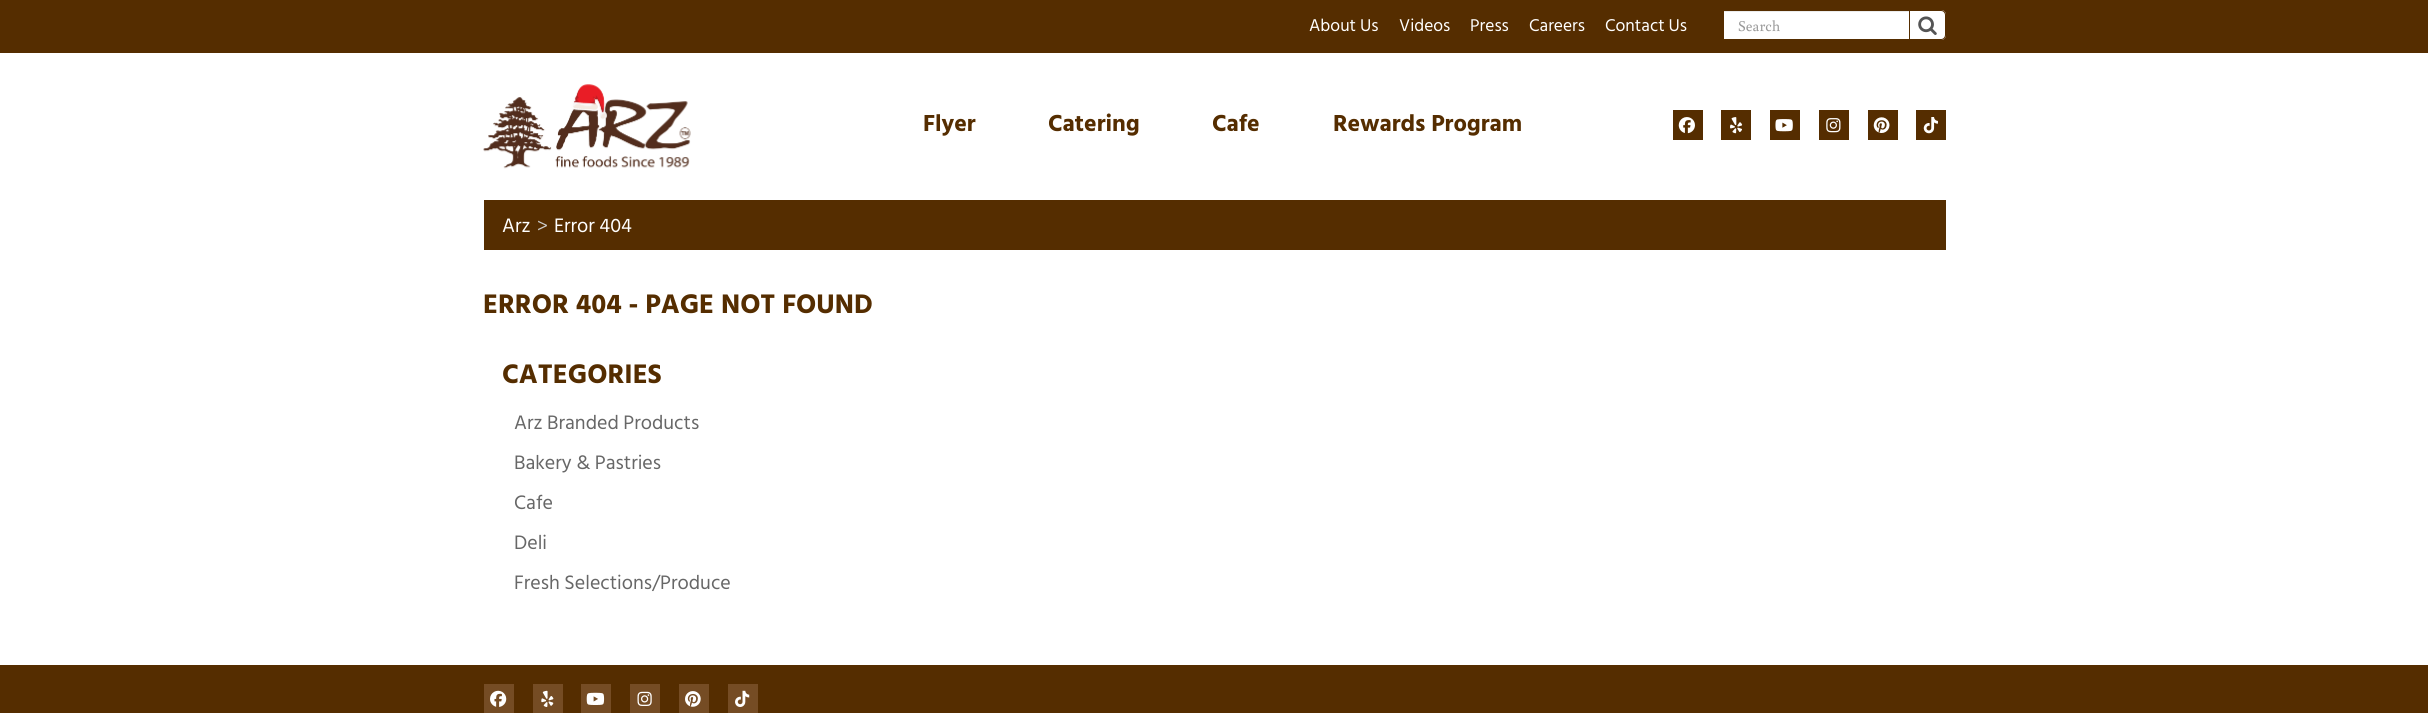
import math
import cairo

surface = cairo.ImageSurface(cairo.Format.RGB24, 2428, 713)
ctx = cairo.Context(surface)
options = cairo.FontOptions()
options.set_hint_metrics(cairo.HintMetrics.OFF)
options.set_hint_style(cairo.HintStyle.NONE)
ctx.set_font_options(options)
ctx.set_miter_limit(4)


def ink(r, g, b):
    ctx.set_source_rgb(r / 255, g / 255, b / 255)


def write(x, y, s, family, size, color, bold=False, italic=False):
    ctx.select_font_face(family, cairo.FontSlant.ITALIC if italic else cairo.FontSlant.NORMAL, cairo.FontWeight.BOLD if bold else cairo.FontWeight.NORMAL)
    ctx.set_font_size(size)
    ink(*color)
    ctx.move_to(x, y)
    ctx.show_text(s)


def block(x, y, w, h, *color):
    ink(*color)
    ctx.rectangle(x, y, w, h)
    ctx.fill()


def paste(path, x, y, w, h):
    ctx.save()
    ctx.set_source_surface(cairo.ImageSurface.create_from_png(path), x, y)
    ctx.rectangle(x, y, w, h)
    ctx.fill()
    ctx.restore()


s1 = dict(family="Hind Siliguri", size=17.5, color=(255, 255, 255))
s2 = dict(family="Buenard", size=15, color=(153, 153, 153))
s3 = dict(family="Hind Siliguri", size=23.75, color=(85, 45, 0), bold=True)
s4 = dict(family="Hind Siliguri", size=20, color=(255, 255, 255))
s5 = dict(family="Hind Siliguri Light", size=22, color=(204, 204, 204))
s6 = dict(family="Hind Siliguri", size=27.5, color=(85, 45, 0), bold=True)
s7 = dict(family="Hind Siliguri", size=20, color=(103, 103, 103))

ink(255, 255, 255)
ctx.paint()
block(0, 0, 2428, 53, 85, 45, 0)
write(1309, 31, "About Us", **s1)
write(1399, 31, "Videos", **s1)
write(1470, 31, "Press", **s1)
write(1529, 31, "Careers", **s1)
write(1605, 31, "Contact Us", **s1)
block(1724, 12, 185, 27, 255, 255, 255)
block(1724, 11, 185, 1, 236, 236, 236)
write(1738, 31, "Search", **s2)
ink(255, 255, 255)
ctx.new_path()
ctx.move_to(1910, 10)
ctx.line_to(1941, 10)
ctx.curve_to(1944, 10, 1946, 12, 1946, 15)
ctx.line_to(1946, 35)
ctx.curve_to(1946, 38, 1944, 40, 1941, 40)
ctx.line_to(1910, 40)
ctx.close_path()
ctx.fill()
ink(85, 45, 0)
ctx.set_fill_rule(cairo.FillRule.EVEN_ODD)
ctx.new_path()
ctx.move_to(1910, 10)
ctx.line_to(1941, 10)
ctx.curve_to(1944, 10, 1946, 12, 1946, 15)
ctx.line_to(1946, 35)
ctx.curve_to(1946, 38, 1944, 40, 1941, 40)
ctx.line_to(1910, 40)
ctx.close_path()
ctx.move_to(1910, 11)
ctx.line_to(1941, 11)
ctx.curve_to(1943.5, 11, 1945, 13, 1945, 15)
ctx.line_to(1945, 35)
ctx.curve_to(1945, 37, 1943.5, 39, 1941, 39)
ctx.line_to(1910, 39)
ctx.close_path()
ctx.fill()
paste("pic1.png", 1918, 16, 19, 19)
paste("pic2.png", 483, 84, 208, 85)
write(923, 131, "Flyer", **s3)
write(1048, 131, "Catering", **s3)
write(1212, 131, "Cafe", **s3)
write(1333, 131, "Rewards Program", **s3)
block(1673, 110, 30, 30, 85, 45, 0)
paste("pic3.png", 1678, 117, 17, 17)
block(1721, 110, 30, 30, 85, 45, 0)
paste("pic4.png", 1730, 117, 13, 17)
block(1770, 110, 30, 30, 85, 45, 0)
paste("pic5.png", 1775, 119, 18, 13)
block(1819, 110, 30, 30, 85, 45, 0)
paste("pic6.png", 1826, 118, 15, 15)
block(1868, 110, 30, 30, 85, 45, 0)
paste("pic7.png", 1873, 117, 17, 16)
block(1916, 110, 30, 30, 85, 45, 0)
paste("pic8.png", 1923, 117, 15, 17)
block(484, 200, 1462, 50, 85, 45, 0)
write(502, 232, "Arz", **s4)
write(537, 233, ">", **s5)
write(554, 232, "Error 404", **s4)
write(483, 313, "ERROR 404 - PAGE NOT FOUND", **s6)
write(502, 383, "CATEGORIES", **s6)
write(514, 429, "Arz Branded Products", **s7)
write(514, 469, "Bakery & Pastries", **s7)
write(514, 509, "Cafe", **s7)
write(514, 549, "Deli", **s7)
write(514, 589, "Fresh Selections/Produce", **s7)
block(0, 665, 2428, 48, 85, 45, 0)
block(484, 684, 30, 29, 117, 76, 36)
paste("pic9.png", 490, 690, 17, 17)
block(533, 684, 30, 29, 117, 76, 36)
paste("pic10.png", 541, 690, 13, 17)
block(581, 684, 30, 29, 117, 76, 36)
paste("pic11.png", 586, 692, 19, 13)
block(630, 684, 30, 29, 117, 76, 36)
paste("pic12.png", 637, 691, 15, 15)
block(679, 684, 30, 29, 117, 76, 36)
paste("pic13.png", 685, 691, 16, 16)
block(728, 684, 30, 29, 117, 76, 36)
paste("pic14.png", 735, 690, 15, 17)
surface.write_to_png("screenshot.png")
